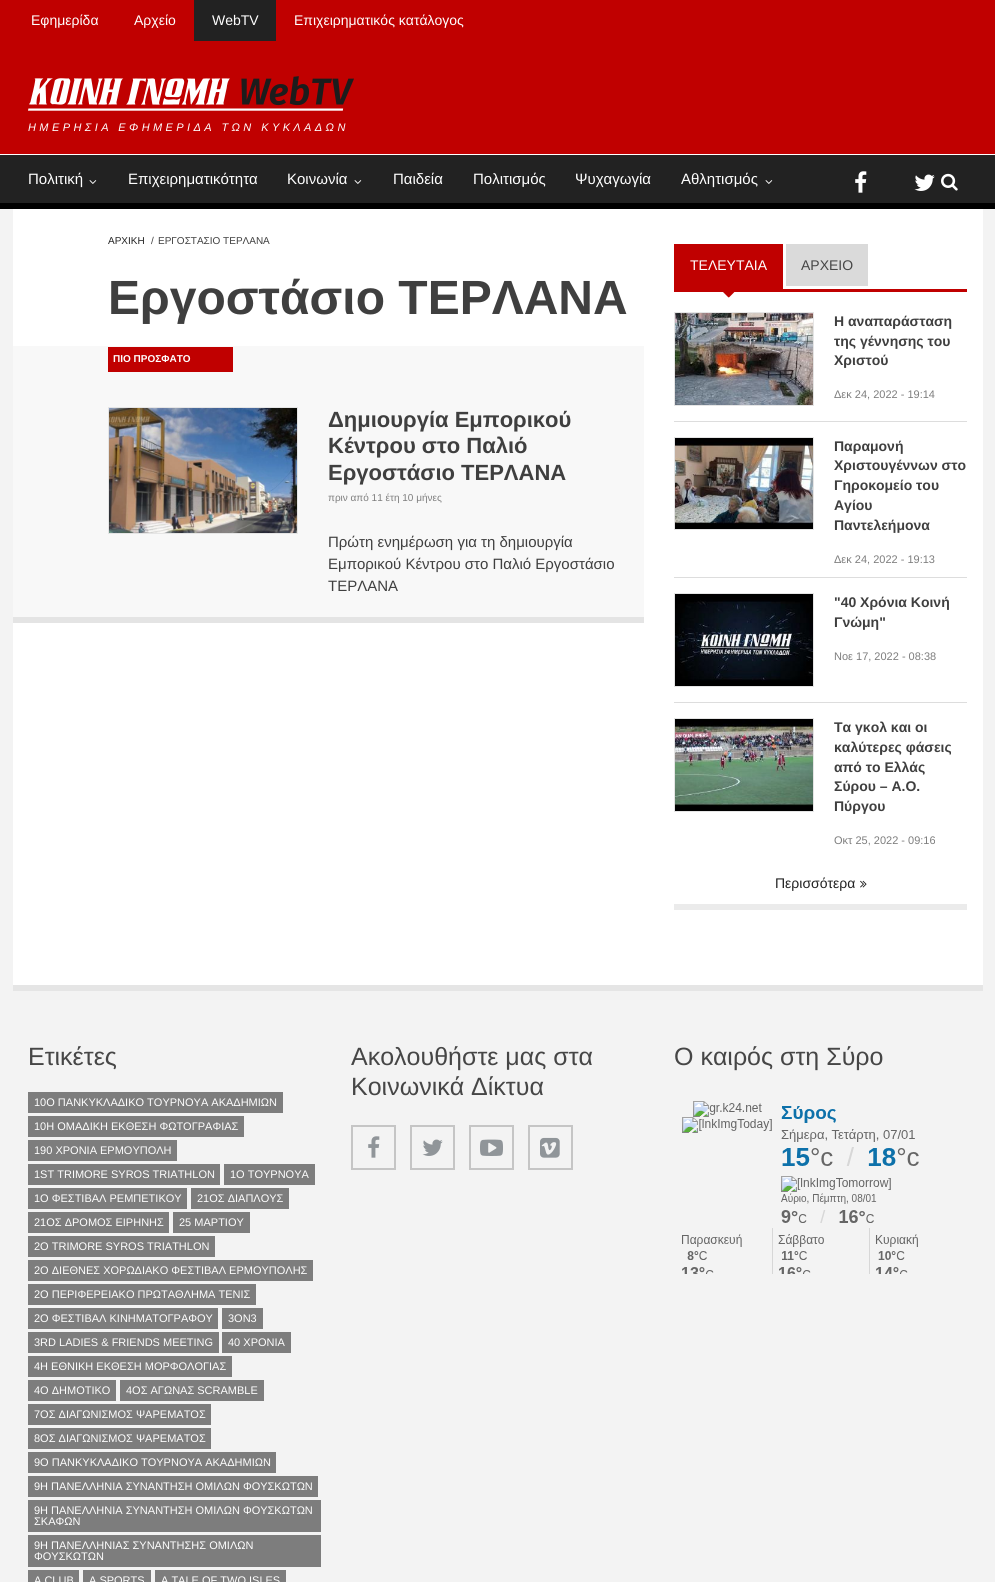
import math
import cairo

surface = cairo.ImageSurface(cairo.Format.RGB24, 995, 1582)
ctx = cairo.Context(surface)
options = cairo.FontOptions()
options.set_hint_metrics(cairo.HintMetrics.OFF)
options.set_hint_style(cairo.HintStyle.NONE)
ctx.set_font_options(options)
ctx.set_miter_limit(4)


def ink(r, g, b):
    ctx.set_source_rgb(r / 255, g / 255, b / 255)


def write(x, y, s, family, size, color, bold=False, italic=False):
    ctx.select_font_face(family, cairo.FontSlant.ITALIC if italic else cairo.FontSlant.NORMAL, cairo.FontWeight.BOLD if bold else cairo.FontWeight.NORMAL)
    ctx.set_font_size(size)
    ink(*color)
    ctx.move_to(x, y)
    ctx.show_text(s)


def write_spaced(x, y, s, letter, word):
    ctx.move_to(x, y)
    for ch in s:
        ctx.show_text(ch)
        ctx.rel_move_to(letter + word * (ch == ' '), 0)


def block(x, y, w, h, *color):
    ink(*color)
    ctx.rectangle(x, y, w, h)
    ctx.fill()


def paste(path, x, y, w, h):
    ctx.save()
    ctx.set_source_surface(cairo.ImageSurface.create_from_png(path), x, y)
    ctx.rectangle(x, y, w, h)
    ctx.fill()
    ctx.restore()


s1 = dict(family="Liberation Sans", size=14, color=(255, 255, 255))
s2 = dict(family="Liberation Sans", size=15, color=(255, 255, 255))
s3 = dict(family="Liberation Sans", size=10, color=(34, 34, 34))
s4 = dict(family="Liberation Sans", size=10, color=(63, 63, 63))
s5 = dict(family="Liberation Sans", size=48, color=(63, 63, 63), bold=True)
s6 = dict(family="Liberation Sans", size=10, color=(255, 255, 255), bold=True)
s7 = dict(family="Liberation Sans", size=22, color=(63, 63, 63), bold=True)
s8 = dict(family="Liberation Sans", size=10, color=(125, 125, 125))
s9 = dict(family="Liberation Sans", size=15, color=(63, 63, 63))
s10 = dict(family="Liberation Sans", size=14, color=(70, 70, 70))
s11 = dict(family="Liberation Sans", size=14, color=(63, 63, 63), bold=True)
s12 = dict(family="Liberation Sans", size=11, color=(125, 125, 125))
s13 = dict(family="Liberation Sans", size=14, color=(34, 34, 34))
s14 = dict(family="Liberation Sans", size=25, color=(70, 70, 70))
s15 = dict(family="Liberation Sans", size=11, color=(255, 255, 255))

ink(243, 243, 243)
ctx.paint()
block(0, 0, 995, 154, 192, 0, 0)
write(31, 25, "Εφημερίδα", **s1)
write(134, 25, "Αρχείο", **s1)
block(194, 0, 82, 41, 34, 34, 34)
write(212, 25, "WebTV", **s1)
write(294, 25, "Επιχειρηματικός κατάλογος", **s1)
block(0, 154, 995, 1, 255, 255, 255)
paste("pic1.png", 28, 76, 326, 35)
ctx.select_font_face("Liberation Sans", cairo.FontSlant.ITALIC)
ctx.set_font_size(11)
write_spaced(28, 131, "ΗΜΕΡΗΣΙΑ ΕΦΗΜΕΡΙΔΑ ΤΩΝ ΚΥΚΛΑΔΩΝ", 3.4, 0)
block(0, 155, 995, 48, 34, 34, 34)
block(0, 203, 995, 6, 0, 0, 0)
write(28, 184, "Πολιτική", **s2)
paste("pic2.png", 89, 180, 8, 4)
write(128, 184, "Επιχειρηματικότητα", **s2)
write(287, 184, "Κοινωνία", **s2)
paste("pic2.png", 354, 180, 8, 4)
write(393, 184, "Παιδεία", **s2)
write(473, 184, "Πολιτισμός", **s2)
write(575, 184, "Ψυχαγωγία", **s2)
write(681, 184, "Αθλητισμός", **s2)
paste("pic2.png", 765, 180, 8, 4)
paste("pic3.png", 855, 171, 12, 22)
paste("pic4.png", 914, 174, 21, 17)
paste("pic5.png", 941, 173, 17, 18)
block(13, 209, 970, 776, 255, 255, 255)
block(13, 985, 970, 6, 229, 229, 229)
write(108, 244, "ΑΡΧΙΚΗ", **s3)
write(151, 244, "/", **s4)
write(158, 244, "ΕΡΓΟΣΤΑΣΙΟ ΤΕΡΛΑΝΑ", **s4)
write(108, 314, "Εργοστάσιο ΤΕΡΛΑΝΑ", **s5)
block(13, 346, 631, 271, 248, 248, 248)
block(108, 347, 125, 25, 192, 0, 0)
write(113, 362, "ΠΙΟ ΠΡΟΣΦΑΤΟ", **s6)
block(13, 617, 631, 6, 228, 228, 228)
ctx.rectangle(108.5, 407.5, 189, 126)
ink(229, 229, 229)
ctx.set_line_width(1)
ctx.stroke()
paste("pic6.png", 109, 408, 188, 125)
write(328, 427, "Δημιουργία Εμπορικού", **s7)
write(328, 453, "Κέντρου στο Παλιό", **s7)
write(328, 480, "Εργοστάσιο ΤΕΡΛΑΝΑ", **s7)
write(328, 501, "πριν από 11 έτη 10 μήνες", **s8)
write(328, 547, "Πρώτη ενημέρωση για τη δημιουργία", **s9)
write(328, 569, "Εμπορικού Κέντρου στο Παλιό Εργοστάσιο", **s9)
write(328, 591, "ΤΕΡΛΑΝΑ", **s9)
block(674, 289, 293, 3, 192, 0, 0)
block(675, 245, 107, 41, 192, 0, 0)
block(674, 244, 109, 1, 192, 0, 0)
block(782, 244, 1, 45, 192, 0, 0)
block(674, 286, 109, 3, 192, 0, 0)
block(674, 244, 1, 45, 192, 0, 0)
write(690, 270, "ΤΕΛΕΥΤΑΙΑ", **s1)
paste("pic7.png", 723, 292, 12, 6)
block(786, 245, 82, 41, 218, 218, 218)
block(785, 244, 84, 1, 218, 218, 218)
block(868, 244, 1, 1, 255, 255, 255)
block(785, 244, 1, 1, 255, 255, 255)
write(801, 270, "ΑΡΧΕΙΟ", **s10)
block(674, 421, 293, 1, 221, 221, 221)
ctx.rectangle(674.5, 312.5, 139, 93)
ink(229, 229, 229)
ctx.stroke()
paste("pic8.png", 675, 313, 138, 92)
write(834, 326, "Η αναπαράσταση", **s11)
write(834, 346, "της γέννησης του", **s11)
write(834, 365, "Χριστού", **s11)
write(834, 398, "Δεκ 24, 2022 - 19:14", **s12)
block(674, 577, 293, 1, 221, 221, 221)
ctx.rectangle(674.5, 437.5, 139, 92)
ink(229, 229, 229)
ctx.stroke()
paste("pic9.png", 675, 438, 138, 91)
write(834, 451, "Παραμονή", **s11)
write(834, 470, "Χριστουγέννων στο", **s11)
write(834, 490, "Γηροκομείο του", **s11)
write(834, 510, "Αγίου", **s11)
write(834, 530, "Παντελεήμονα", **s11)
write(834, 563, "Δεκ 24, 2022 - 19:13", **s12)
block(674, 702, 293, 1, 221, 221, 221)
ctx.rectangle(674.5, 593.5, 139, 93)
ink(229, 229, 229)
ctx.stroke()
paste("pic10.png", 675, 594, 138, 92)
write(834, 607, "\"40 Χρόνια Κοινή", **s11)
write(834, 627, "Γνώμη\"", **s11)
write(834, 660, "Νοε 17, 2022 - 08:38", **s12)
ctx.rectangle(674.5, 718.5, 139, 93)
ink(229, 229, 229)
ctx.stroke()
paste("pic11.png", 675, 719, 138, 92)
write(834, 732, "Τα γκολ και οι", **s11)
write(834, 752, "καλύτερες φάσεις", **s11)
write(834, 772, "από το Ελλάς", **s11)
write(834, 791, "Σύρου – Α.Ο.", **s11)
write(834, 811, "Πύργου", **s11)
write(834, 844, "Οκτ 25, 2022 - 09:16", **s12)
block(674, 904, 293, 6, 235, 235, 235)
write(775, 888, "Περισσότερα", **s13)
paste("pic12.png", 860, 880, 7, 8)
write(28, 1065, "Ετικέτες", **s14)
block(28, 1092, 255, 21, 125, 125, 125)
write(34, 1106, "10O ΠΑΝΚΥΚΛΑΔΙΚΟ ΤΟΥΡΝΟΥΑ ΑΚΑΔΗΜΙΩΝ", **s15)
block(28, 1116, 216, 21, 125, 125, 125)
write(34, 1130, "10Η ΟΜΑΔΙΚΗ ΕΚΘΕΣΗ ΦΩΤΟΓΡΑΦΙΑΣ", **s15)
block(28, 1140, 149, 21, 125, 125, 125)
write(34, 1154, "190 ΧΡΟΝΙΑ ΕΡΜΟΥΠΟΛΗ", **s15)
block(28, 1164, 192, 21, 125, 125, 125)
write(34, 1178, "1ST TRIMORE SYROS TRIATHLON", **s15)
block(224, 1164, 91, 21, 125, 125, 125)
write(230, 1178, "1Ο ΤΟΥΡΝΟΥΑ", **s15)
block(28, 1188, 159, 21, 125, 125, 125)
write(34, 1202, "1Ο ΦΕΣΤΙΒΑΛ ΡΕΜΠΕΤΙΚΟΥ", **s15)
block(191, 1188, 98, 21, 125, 125, 125)
write(197, 1202, "21ΟΣ ΔΙΑΠΛΟΥΣ", **s15)
block(28, 1212, 141, 21, 125, 125, 125)
write(34, 1226, "21ΟΣ ΔΡΟΜΟΣ ΕΙΡΗΝΗΣ", **s15)
block(173, 1212, 77, 21, 125, 125, 125)
write(179, 1226, "25 ΜΑΡΤΙΟΥ", **s15)
block(28, 1236, 187, 21, 125, 125, 125)
write(34, 1250, "2Ο TRIMORE SYROS TRIATHLON", **s15)
block(28, 1260, 285, 21, 125, 125, 125)
write(34, 1274, "2Ο ΔΙΕΘΝΕΣ ΧΟΡΩΔΙΑΚΟ ΦΕΣΤΙΒΑΛ ΕΡΜΟΥΠΟΛΗΣ", **s15)
block(28, 1284, 228, 21, 125, 125, 125)
write(34, 1298, "2Ο ΠΕΡΙΦΕΡΕΙΑΚΟ ΠΡΩΤΑΘΛΗΜΑ ΤΕΝΙΣ", **s15)
block(28, 1308, 190, 21, 125, 125, 125)
write(34, 1322, "2Ο ΦΕΣΤΙΒΑΛ ΚΙΝΗΜΑΤΟΓΡΑΦΟΥ", **s15)
block(222, 1308, 41, 21, 125, 125, 125)
write(228, 1322, "3ON3", **s15)
block(28, 1332, 191, 21, 125, 125, 125)
write(34, 1346, "3RD LADIES & FRIENDS MEETING", **s15)
block(222, 1332, 69, 21, 125, 125, 125)
write(228, 1346, "40 ΧΡΟΝΙΑ", **s15)
block(28, 1356, 204, 21, 125, 125, 125)
write(34, 1370, "4Η ΕΘΝΙΚΗ ΕΚΘΕΣΗ ΜΟΡΦΟΛΟΓΙΑΣ", **s15)
block(28, 1380, 88, 21, 125, 125, 125)
write(34, 1394, "4Ο ΔΗΜΟΤΙΚΟ", **s15)
block(120, 1380, 144, 21, 125, 125, 125)
write(126, 1394, "4ΟΣ ΑΓΩΝΑΣ SCRAMBLE", **s15)
block(28, 1404, 183, 21, 125, 125, 125)
write(34, 1418, "7ΟΣ ΔΙΑΓΩΝΙΣΜΟΣ ΨΑΡΕΜΑΤΟΣ", **s15)
block(28, 1428, 183, 21, 125, 125, 125)
write(34, 1442, "8ΟΣ ΔΙΑΓΩΝΙΣΜΟΣ ΨΑΡΕΜΑΤΟΣ", **s15)
block(28, 1452, 248, 21, 125, 125, 125)
write(34, 1466, "9O ΠΑΝΚΥΚΛΑΔΙΚΟ ΤΟΥΡΝΟΥΑ ΑΚΑΔΗΜΙΩΝ", **s15)
block(28, 1476, 290, 21, 125, 125, 125)
write(34, 1490, "9Η ΠΑΝΕΛΛΗΝΙΑ ΣΥΝΑΝΤΗΣΗ ΟΜΙΛΩΝ ΦΟΥΣΚΩΤΩΝ", **s15)
block(28, 1500, 293, 32, 125, 125, 125)
write(34, 1514, "9Η ΠΑΝΕΛΛΗΝΙΑ ΣΥΝΑΝΤΗΣΗ ΟΜΙΛΩΝ ΦΟΥΣΚΩΤΩΝ", **s15)
write(34, 1525, "ΣΚΑΦΩΝ", **s15)
block(28, 1535, 293, 32, 125, 125, 125)
write(34, 1549, "9Η ΠΑΝΕΛΛΗΝΙΑΣ ΣΥΝΑΝΤΗΣΗΣ ΟΜΙΛΩΝ", **s15)
write(34, 1560, "ΦΟΥΣΚΩΤΩΝ", **s15)
block(28, 1570, 51, 12, 125, 125, 125)
write(34, 1584, "A CLUB", **s15)
block(83, 1570, 68, 12, 125, 125, 125)
write(89, 1584, "A SPORTS", **s15)
block(155, 1570, 131, 12, 125, 125, 125)
write(161, 1584, "A TALE OF TWO ISLES", **s15)
write(351, 1065, "Ακολουθήστε μας στα", **s14)
write(351, 1095, "Κοινωνικά Δίκτυα", **s14)
ctx.rectangle(352, 1126, 43, 43)
ink(197, 197, 197)
ctx.set_line_width(2)
ctx.stroke()
paste("pic13.png", 368, 1136, 12, 22)
ctx.rectangle(411, 1126, 43, 43)
ctx.stroke()
paste("pic14.png", 422, 1139, 21, 17)
ctx.rectangle(470, 1126, 43, 43)
ctx.stroke()
paste("pic15.png", 480, 1139, 23, 17)
ctx.rectangle(529, 1126, 43, 43)
ctx.stroke()
paste("pic16.png", 540, 1137, 20, 21)
write(674, 1065, "Ο καιρός στη Σύρο", **s14)
paste("pic17.png", 682, 1101, 237, 173)
surface.write_to_png("screenshot.png")
